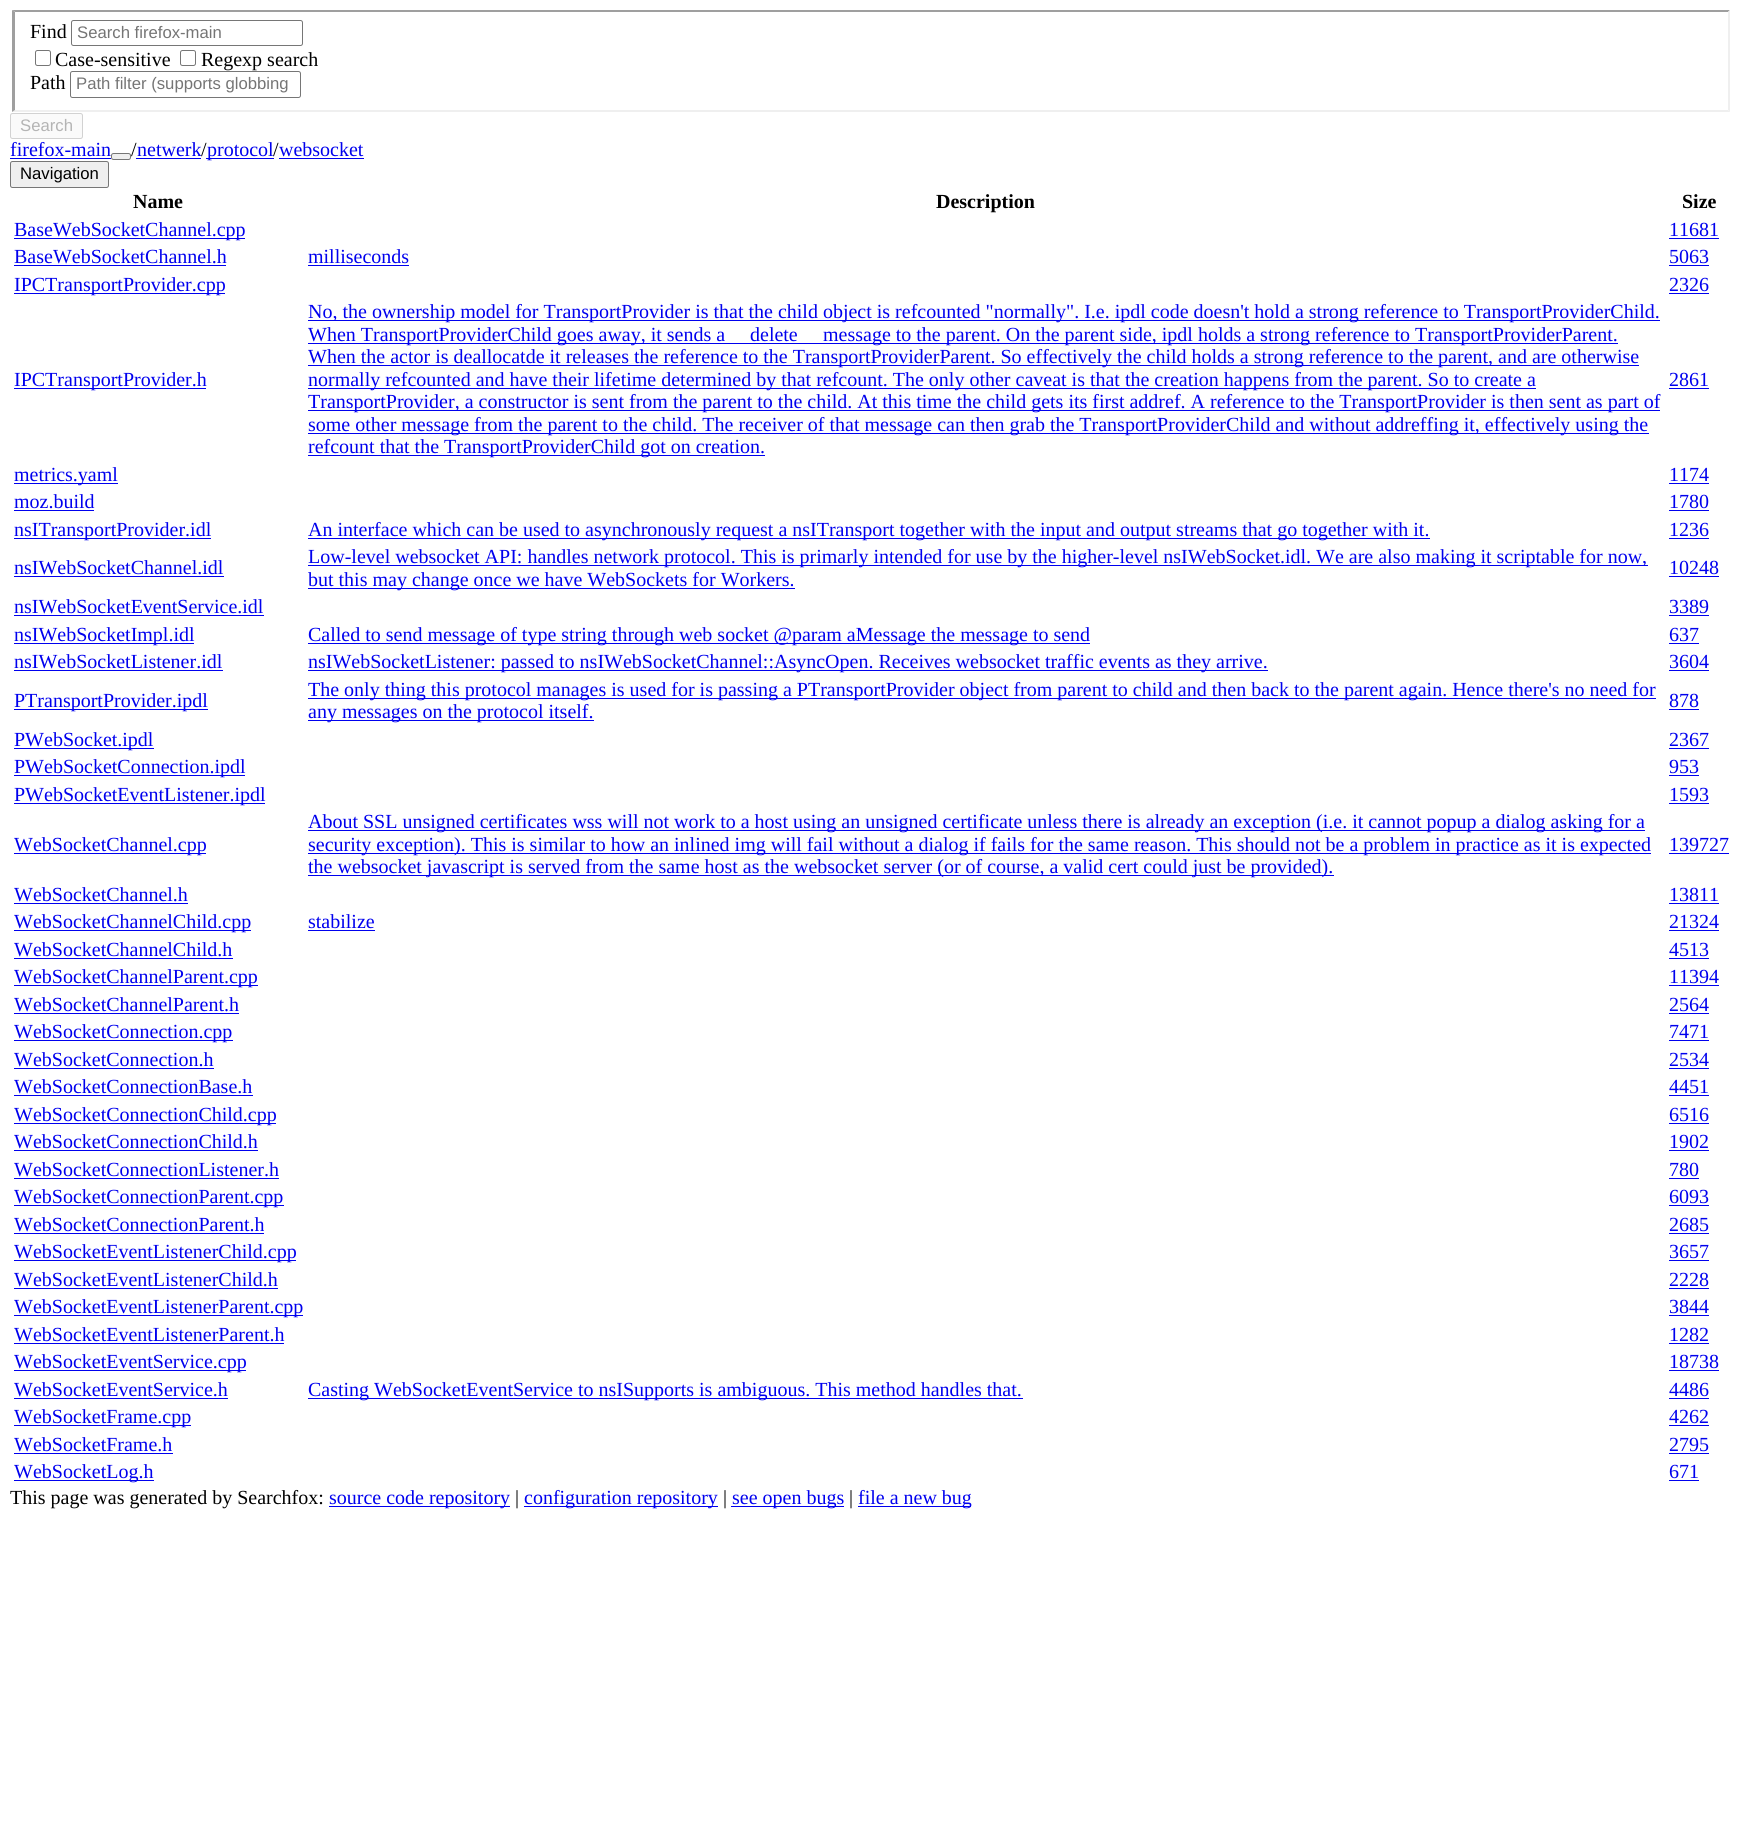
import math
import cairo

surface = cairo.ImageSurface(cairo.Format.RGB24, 1742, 1821)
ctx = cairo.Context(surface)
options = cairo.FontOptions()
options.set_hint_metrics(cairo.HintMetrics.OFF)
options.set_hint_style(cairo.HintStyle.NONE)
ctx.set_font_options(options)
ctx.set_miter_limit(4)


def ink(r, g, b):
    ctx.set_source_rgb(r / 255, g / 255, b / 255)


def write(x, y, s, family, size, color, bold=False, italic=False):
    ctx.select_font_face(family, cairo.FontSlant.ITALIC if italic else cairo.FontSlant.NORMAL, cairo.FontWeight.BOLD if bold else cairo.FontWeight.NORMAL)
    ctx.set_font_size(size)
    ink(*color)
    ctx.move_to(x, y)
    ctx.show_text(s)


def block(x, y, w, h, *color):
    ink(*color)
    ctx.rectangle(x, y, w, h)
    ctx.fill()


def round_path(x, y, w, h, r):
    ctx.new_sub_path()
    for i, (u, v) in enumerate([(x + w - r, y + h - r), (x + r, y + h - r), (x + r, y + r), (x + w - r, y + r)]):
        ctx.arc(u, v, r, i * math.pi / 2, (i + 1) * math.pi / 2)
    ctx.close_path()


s1 = dict(family="Liberation Serif", size=20, color=(0, 0, 0))
s2 = dict(family="Liberation Sans", size=16.7, color=(117, 117, 117))
s3 = dict(family="Liberation Sans", size=16.7, color=(180, 180, 180))
s4 = dict(family="Liberation Serif", size=20, color=(0, 0, 238))
s5 = dict(family="Liberation Sans", size=16.7, color=(0, 0, 0))
s6 = dict(family="Liberation Serif", size=20, color=(0, 0, 0), bold=True)

ink(255, 255, 255)
ctx.paint()
ink(159, 159, 159)
ctx.new_path()
ctx.move_to(12, 10)
ctx.line_to(1730, 10)
ctx.line_to(1728, 12)
ctx.line_to(15, 12)
ctx.close_path()
ctx.fill()
ink(239, 239, 239)
ctx.new_path()
ctx.move_to(1730, 10)
ctx.line_to(1730, 112)
ctx.line_to(1728, 110)
ctx.line_to(1728, 12)
ctx.close_path()
ctx.fill()
ctx.new_path()
ctx.move_to(1730, 112)
ctx.line_to(12, 112)
ctx.line_to(15, 110)
ctx.line_to(1728, 110)
ctx.close_path()
ctx.fill()
ink(159, 159, 159)
ctx.new_path()
ctx.move_to(12, 112)
ctx.line_to(12, 10)
ctx.line_to(15, 12)
ctx.line_to(15, 110)
ctx.close_path()
ctx.fill()
write(30, 38, "Find", **s1)
round_path(71.5, 20.5, 231, 25, 2)
ink(118, 118, 118)
ctx.set_line_width(1)
ctx.stroke()
write(77, 38, "Search firefox-main", **s2)
round_path(35.5, 50.5, 15, 15, 2)
ink(118, 118, 118)
ctx.stroke()
write(55, 66, "Case-sensitive", **s1)
round_path(180.5, 50.5, 15, 15, 2)
ink(118, 118, 118)
ctx.stroke()
write(201, 66, "Regexp search", **s1)
write(30, 89, "Path", **s1)
round_path(70.5, 71.5, 230, 26, 2)
ink(118, 118, 118)
ctx.stroke()
write(76, 89, "Path filter (supports globbing", **s2)
ink(250, 250, 250)
round_path(10.5, 113.5, 72, 25, 2)
ctx.fill_preserve()
ink(210, 210, 210)
ctx.stroke()
write(20, 131, "Search", **s3)
write(10, 156, "firefox-main", **s4)
block(10, 158, 101, 1, 0, 0, 238)
ink(239, 239, 239)
round_path(111.5, 153.5, 19, 6, 2)
ctx.fill_preserve()
ink(118, 118, 118)
ctx.stroke()
write(131, 156, "/", **s1)
write(137, 156, "netwerk", **s4)
block(136, 158, 65, 1, 0, 0, 238)
write(201, 156, "/", **s1)
block(206, 158, 68, 1, 0, 0, 238)
write(207, 156, "protocol", **s4)
write(273, 156, "/", **s1)
write(279, 156, "websocket", **s4)
block(279, 158, 85, 1, 0, 0, 238)
ink(239, 239, 239)
round_path(10.5, 161.5, 98, 26, 2)
ctx.fill_preserve()
ink(118, 118, 118)
ctx.stroke()
write(20, 179, "Navigation", **s5)
write(133, 208, "Name", **s6)
write(936, 208, "Description", **s6)
write(1682, 208, "Size", **s6)
block(14, 238, 231, 1, 0, 0, 238)
write(14, 236, "BaseWebSocketChannel.cpp", **s4)
write(1669, 236, "11681", **s4)
block(1669, 238, 50, 1, 0, 0, 238)
write(14, 263, "BaseWebSocketChannel.h", **s4)
block(14, 265, 212, 1, 0, 0, 238)
write(308, 263, "milliseconds", **s4)
block(308, 265, 101, 1, 0, 0, 238)
write(1669, 263, "5063", **s4)
block(1669, 265, 40, 1, 0, 0, 238)
block(14, 293, 211, 1, 0, 0, 238)
write(14, 291, "IPCTransportProvider.cpp", **s4)
write(1669, 291, "2326", **s4)
block(1669, 293, 40, 1, 0, 0, 238)
block(14, 388, 192, 1, 0, 0, 238)
write(14, 386, "IPCTransportProvider.h", **s4)
block(308, 320, 1352, 1, 0, 0, 238)
write(308, 318, "No, the ownership model for TransportProvider is that the child object is refcounted \"normally\". I.e. ipdl code doesn't hold a strong reference to TransportProviderChild.", **s4)
block(308, 343, 1310, 1, 0, 0, 238)
write(308, 341, "When TransportProviderChild goes away, it sends a", **s4)
write(750, 341, "delete", **s4)
write(823, 341, "message to the parent. On the parent side, ipdl holds a strong reference to TransportProviderParent.", **s4)
block(308, 365, 1331, 1, 0, 0, 238)
write(308, 363, "When the actor is deallocatde it releases the reference to the TransportProviderParent. So effectively the child holds a strong reference to the parent, and are otherwise", **s4)
block(308, 388, 1228, 1, 0, 0, 238)
write(308, 386, "normally refcounted and have their lifetime determined by that refcount. The only other caveat is that the creation happens from the parent. So to create a", **s4)
block(308, 410, 1352, 1, 0, 0, 238)
write(308, 408, "TransportProvider, a constructor is sent from the parent to the child. At this time the child gets its first addref. A reference to the TransportProvider is then sent as part of", **s4)
block(308, 433, 1341, 1, 0, 0, 238)
write(308, 431, "some other message from the parent to the child. The receiver of that message can then grab the TransportProviderChild and without addreffing it, effectively using the", **s4)
block(308, 455, 457, 1, 0, 0, 238)
write(308, 453, "refcount that the TransportProviderChild got on creation.", **s4)
write(1669, 386, "2861", **s4)
block(1669, 388, 40, 1, 0, 0, 238)
block(14, 483, 104, 1, 0, 0, 238)
write(14, 481, "metrics.yaml", **s4)
write(1669, 481, "1174", **s4)
block(1669, 483, 40, 1, 0, 0, 238)
write(14, 508, "moz.build", **s4)
block(14, 510, 80, 1, 0, 0, 238)
write(1669, 508, "1780", **s4)
block(1669, 510, 40, 1, 0, 0, 238)
block(14, 538, 197, 1, 0, 0, 238)
write(14, 536, "nsITransportProvider.idl", **s4)
block(308, 538, 1122, 1, 0, 0, 238)
write(308, 536, "An interface which can be used to asynchronously request a nsITransport together with the input and output streams that go together with it.", **s4)
write(1669, 536, "1236", **s4)
block(1669, 538, 40, 1, 0, 0, 238)
write(14, 574, "nsIWebSocketChannel.idl", **s4)
block(14, 576, 210, 1, 0, 0, 238)
block(308, 565, 1340, 1, 0, 0, 238)
write(308, 563, "Low-level websocket API: handles network protocol. This is primarly intended for use by the higher-level nsIWebSocket.idl. We are also making it scriptable for now,", **s4)
block(308, 588, 487, 1, 0, 0, 238)
write(308, 586, "but this may change once we have WebSockets for Workers.", **s4)
write(1669, 574, "10248", **s4)
block(1669, 576, 50, 1, 0, 0, 238)
write(14, 613, "nsIWebSocketEventService.idl", **s4)
block(14, 615, 250, 1, 0, 0, 238)
write(1669, 613, "3389", **s4)
block(1669, 615, 40, 1, 0, 0, 238)
block(14, 643, 180, 1, 0, 0, 238)
write(14, 641, "nsIWebSocketImpl.idl", **s4)
block(308, 643, 782, 1, 0, 0, 238)
write(308, 641, "Called to send message of type string through web socket @param aMessage the message to send", **s4)
write(1669, 641, "637", **s4)
block(1669, 643, 30, 1, 0, 0, 238)
write(14, 668, "nsIWebSocketListener.idl", **s4)
block(14, 670, 209, 1, 0, 0, 238)
block(308, 670, 960, 1, 0, 0, 238)
write(308, 668, "nsIWebSocketListener: passed to nsIWebSocketChannel::AsyncOpen. Receives websocket traffic events as they arrive.", **s4)
write(1669, 668, "3604", **s4)
block(1669, 670, 40, 1, 0, 0, 238)
block(14, 709, 194, 1, 0, 0, 238)
write(14, 707, "PTransportProvider.ipdl", **s4)
block(308, 698, 1348, 1, 0, 0, 238)
write(308, 696, "The only thing this protocol manages is used for is passing a PTransportProvider object from parent to child and then back to the parent again. Hence there's no need for", **s4)
block(308, 720, 286, 1, 0, 0, 238)
write(308, 718, "any messages on the protocol itself.", **s4)
write(1669, 707, "878", **s4)
block(1669, 709, 30, 1, 0, 0, 238)
block(14, 748, 140, 1, 0, 0, 238)
write(14, 746, "PWebSocket.ipdl", **s4)
write(1669, 746, "2367", **s4)
block(1669, 748, 40, 1, 0, 0, 238)
block(14, 775, 231, 1, 0, 0, 238)
write(14, 773, "PWebSocketConnection.ipdl", **s4)
write(1669, 773, "953", **s4)
block(1669, 775, 30, 1, 0, 0, 238)
block(14, 803, 251, 1, 0, 0, 238)
write(14, 801, "PWebSocketEventListener.ipdl", **s4)
write(1669, 801, "1593", **s4)
block(1669, 803, 40, 1, 0, 0, 238)
block(14, 853, 192, 1, 0, 0, 238)
write(14, 851, "WebSocketChannel.cpp", **s4)
block(308, 830, 1337, 1, 0, 0, 238)
write(308, 828, "About SSL unsigned certificates wss will not work to a host using an unsigned certificate unless there is already an exception (i.e. it cannot popup a dialog asking for a", **s4)
block(308, 853, 1343, 1, 0, 0, 238)
write(308, 851, "security exception). This is similar to how an inlined img will fail without a dialog if fails for the same reason. This should not be a problem in practice as it is expected", **s4)
block(308, 875, 1026, 1, 0, 0, 238)
write(308, 873, "the websocket javascript is served from the same host as the websocket server (or of course, a valid cert could just be provided).", **s4)
write(1669, 851, "139727", **s4)
block(1669, 853, 60, 1, 0, 0, 238)
write(14, 901, "WebSocketChannel.h", **s4)
block(14, 903, 174, 1, 0, 0, 238)
write(1669, 901, "13811", **s4)
block(1669, 903, 50, 1, 0, 0, 238)
block(14, 930, 237, 1, 0, 0, 238)
write(14, 928, "WebSocketChannelChild.cpp", **s4)
write(308, 928, "stabilize", **s4)
block(308, 930, 67, 1, 0, 0, 238)
write(1669, 928, "21324", **s4)
block(1669, 930, 50, 1, 0, 0, 238)
write(14, 956, "WebSocketChannelChild.h", **s4)
block(14, 958, 219, 1, 0, 0, 238)
write(1669, 956, "4513", **s4)
block(1669, 958, 40, 1, 0, 0, 238)
block(14, 985, 244, 1, 0, 0, 238)
write(14, 983, "WebSocketChannelParent.cpp", **s4)
write(1669, 983, "11394", **s4)
block(1669, 985, 50, 1, 0, 0, 238)
write(14, 1011, "WebSocketChannelParent.h", **s4)
block(14, 1013, 225, 1, 0, 0, 238)
write(1669, 1011, "2564", **s4)
block(1669, 1013, 40, 1, 0, 0, 238)
block(14, 1040, 219, 1, 0, 0, 238)
write(14, 1038, "WebSocketConnection.cpp", **s4)
write(1669, 1038, "7471", **s4)
block(1669, 1040, 40, 1, 0, 0, 238)
write(14, 1066, "WebSocketConnection.h", **s4)
block(14, 1068, 200, 1, 0, 0, 238)
write(1669, 1066, "2534", **s4)
block(1669, 1068, 40, 1, 0, 0, 238)
write(14, 1093, "WebSocketConnectionBase.h", **s4)
block(14, 1095, 239, 1, 0, 0, 238)
write(1669, 1093, "4451", **s4)
block(1669, 1095, 40, 1, 0, 0, 238)
block(14, 1123, 262, 1, 0, 0, 238)
write(14, 1121, "WebSocketConnectionChild.cpp", **s4)
write(1669, 1121, "6516", **s4)
block(1669, 1123, 40, 1, 0, 0, 238)
write(14, 1148, "WebSocketConnectionChild.h", **s4)
block(14, 1150, 244, 1, 0, 0, 238)
write(1669, 1148, "1902", **s4)
block(1669, 1150, 40, 1, 0, 0, 238)
write(14, 1176, "WebSocketConnectionListener.h", **s4)
block(14, 1178, 265, 1, 0, 0, 238)
write(1669, 1176, "780", **s4)
block(1669, 1178, 30, 1, 0, 0, 238)
block(14, 1205, 270, 1, 0, 0, 238)
write(14, 1203, "WebSocketConnectionParent.cpp", **s4)
write(1669, 1203, "6093", **s4)
block(1669, 1205, 40, 1, 0, 0, 238)
write(14, 1231, "WebSocketConnectionParent.h", **s4)
block(14, 1233, 250, 1, 0, 0, 238)
write(1669, 1231, "2685", **s4)
block(1669, 1233, 40, 1, 0, 0, 238)
block(14, 1260, 282, 1, 0, 0, 238)
write(14, 1258, "WebSocketEventListenerChild.cpp", **s4)
write(1669, 1258, "3657", **s4)
block(1669, 1260, 40, 1, 0, 0, 238)
write(14, 1286, "WebSocketEventListenerChild.h", **s4)
block(14, 1288, 264, 1, 0, 0, 238)
write(1669, 1286, "2228", **s4)
block(1669, 1288, 40, 1, 0, 0, 238)
block(14, 1315, 289, 1, 0, 0, 238)
write(14, 1313, "WebSocketEventListenerParent.cpp", **s4)
write(1669, 1313, "3844", **s4)
block(1669, 1315, 40, 1, 0, 0, 238)
write(14, 1341, "WebSocketEventListenerParent.h", **s4)
block(14, 1343, 270, 1, 0, 0, 238)
write(1669, 1341, "1282", **s4)
block(1669, 1343, 40, 1, 0, 0, 238)
block(14, 1370, 232, 1, 0, 0, 238)
write(14, 1368, "WebSocketEventService.cpp", **s4)
write(1669, 1368, "18738", **s4)
block(1669, 1370, 50, 1, 0, 0, 238)
write(14, 1396, "WebSocketEventService.h", **s4)
block(14, 1398, 214, 1, 0, 0, 238)
block(308, 1398, 715, 1, 0, 0, 238)
write(308, 1396, "Casting WebSocketEventService to nsISupports is ambiguous. This method handles that.", **s4)
write(1669, 1396, "4486", **s4)
block(1669, 1398, 40, 1, 0, 0, 238)
block(14, 1425, 177, 1, 0, 0, 238)
write(14, 1423, "WebSocketFrame.cpp", **s4)
write(1669, 1423, "4262", **s4)
block(1669, 1425, 40, 1, 0, 0, 238)
write(14, 1451, "WebSocketFrame.h", **s4)
block(14, 1453, 159, 1, 0, 0, 238)
write(1669, 1451, "2795", **s4)
block(1669, 1453, 40, 1, 0, 0, 238)
block(14, 1480, 140, 1, 0, 0, 238)
write(14, 1478, "WebSocketLog.h", **s4)
write(1669, 1478, "671", **s4)
block(1669, 1480, 30, 1, 0, 0, 238)
write(10, 1504, "This page was generated by Searchfox:", **s1)
block(329, 1506, 181, 1, 0, 0, 238)
write(329, 1504, "source code repository", **s4)
write(515, 1504, "|", **s1)
block(524, 1506, 194, 1, 0, 0, 238)
write(524, 1504, "configuration repository", **s4)
write(723, 1504, "|", **s1)
block(731, 1506, 113, 1, 0, 0, 238)
write(732, 1504, "see open bugs", **s4)
write(849, 1504, "|", **s1)
block(858, 1506, 113, 1, 0, 0, 238)
write(858, 1504, "file a new bug", **s4)
surface.write_to_png("screenshot.png")
